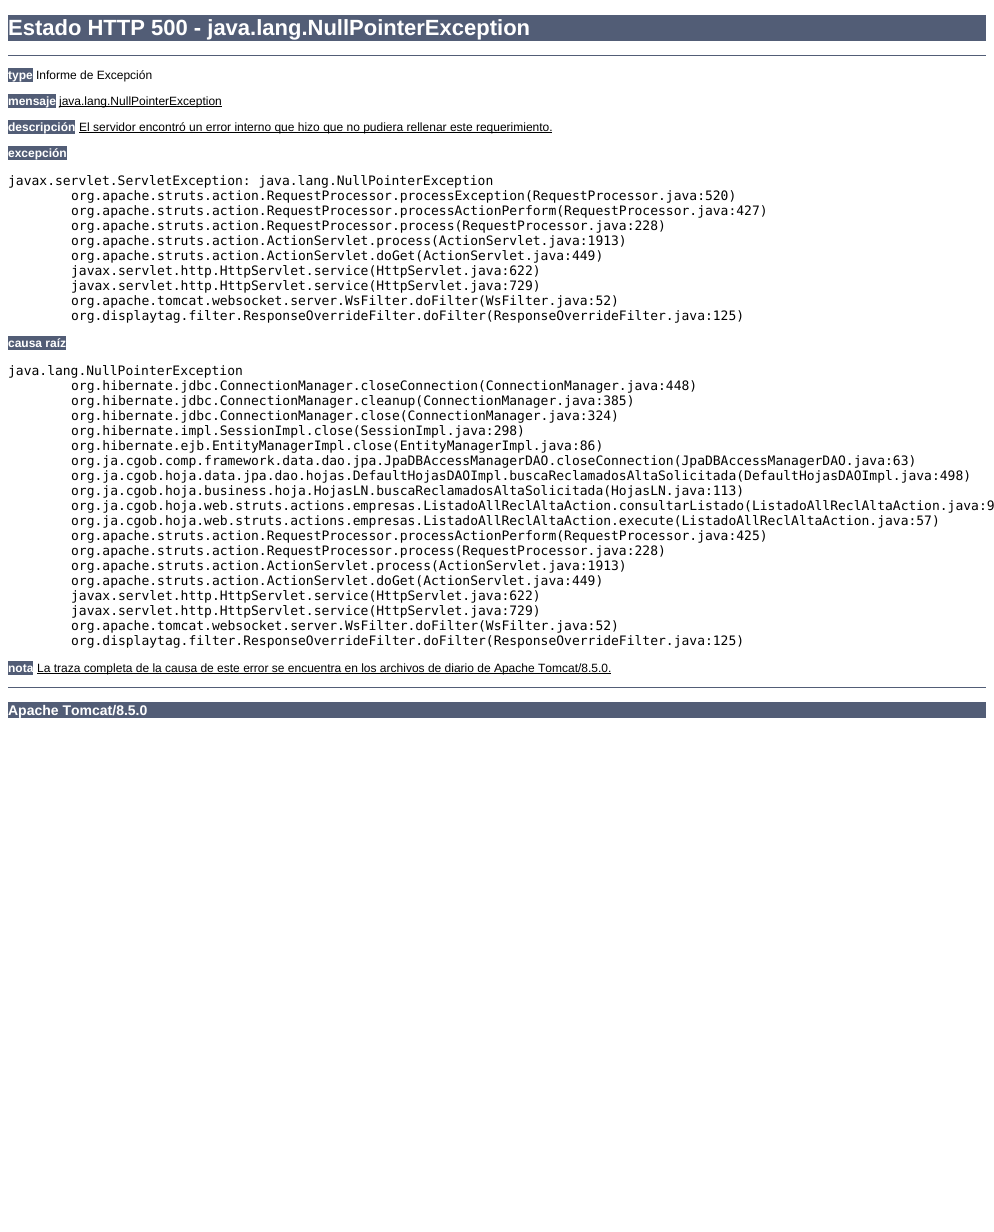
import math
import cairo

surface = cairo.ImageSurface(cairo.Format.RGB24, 994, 1232)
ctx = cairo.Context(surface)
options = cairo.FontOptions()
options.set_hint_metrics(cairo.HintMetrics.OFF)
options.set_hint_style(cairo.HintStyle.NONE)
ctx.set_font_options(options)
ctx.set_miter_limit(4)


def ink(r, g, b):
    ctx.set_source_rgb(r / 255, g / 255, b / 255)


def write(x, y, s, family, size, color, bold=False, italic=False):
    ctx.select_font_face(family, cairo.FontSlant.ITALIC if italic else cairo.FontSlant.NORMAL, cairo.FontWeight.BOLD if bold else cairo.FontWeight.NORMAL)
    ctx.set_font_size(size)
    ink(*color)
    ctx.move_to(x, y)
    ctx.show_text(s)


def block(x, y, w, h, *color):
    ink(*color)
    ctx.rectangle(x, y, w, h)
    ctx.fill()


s1 = dict(family="Liberation Sans", size=22, color=(255, 255, 255), bold=True)
s2 = dict(family="Liberation Sans", size=12, color=(255, 255, 255), bold=True)
s3 = dict(family="Liberation Sans", size=12, color=(0, 0, 0))
s4 = dict(family="DejaVu Sans Mono", size=13, color=(0, 0, 0))
s5 = dict(family="Liberation Sans", size=14, color=(255, 255, 255), bold=True)

ink(255, 255, 255)
ctx.paint()
block(8, 15, 978, 26, 82, 93, 118)
write(8, 35, "Estado HTTP 500 - java.lang.NullPointerException", **s1)
block(8, 55, 978, 1, 82, 93, 118)
block(8, 68, 25, 14, 82, 93, 118)
write(8, 79, "type", **s2)
write(36, 79, "Informe de Excepción", **s3)
block(8, 94, 48, 14, 82, 93, 118)
write(8, 105, "mensaje", **s2)
block(59, 106, 163, 1, 0, 0, 0)
write(59, 105, "java.lang.NullPointerException", **s3)
block(8, 120, 67, 14, 82, 93, 118)
write(8, 131, "descripción", **s2)
block(79, 132, 473, 1, 0, 0, 0)
write(79, 131, "El servidor encontró un error interno que hizo que no pudiera rellenar este requerimiento.", **s3)
block(8, 146, 59, 14, 82, 93, 118)
write(8, 157, "excepción", **s2)
write(8, 185, "javax.servlet.ServletException: java.lang.NullPointerException", **s4)
write(71, 200, "org.apache.struts.action.RequestProcessor.processException(RequestProcessor.java:520)", **s4)
write(71, 215, "org.apache.struts.action.RequestProcessor.processActionPerform(RequestProcessor.java:427)", **s4)
write(71, 230, "org.apache.struts.action.RequestProcessor.process(RequestProcessor.java:228)", **s4)
write(71, 245, "org.apache.struts.action.ActionServlet.process(ActionServlet.java:1913)", **s4)
write(71, 260, "org.apache.struts.action.ActionServlet.doGet(ActionServlet.java:449)", **s4)
write(71, 275, "javax.servlet.http.HttpServlet.service(HttpServlet.java:622)", **s4)
write(71, 290, "javax.servlet.http.HttpServlet.service(HttpServlet.java:729)", **s4)
write(71, 305, "org.apache.tomcat.websocket.server.WsFilter.doFilter(WsFilter.java:52)", **s4)
write(71, 320, "org.displaytag.filter.ResponseOverrideFilter.doFilter(ResponseOverrideFilter.java:125)", **s4)
block(8, 336, 58, 14, 82, 93, 118)
write(8, 347, "causa raíz", **s2)
write(8, 375, "java.lang.NullPointerException", **s4)
write(71, 390, "org.hibernate.jdbc.ConnectionManager.closeConnection(ConnectionManager.java:448)", **s4)
write(71, 405, "org.hibernate.jdbc.ConnectionManager.cleanup(ConnectionManager.java:385)", **s4)
write(71, 420, "org.hibernate.jdbc.ConnectionManager.close(ConnectionManager.java:324)", **s4)
write(71, 435, "org.hibernate.impl.SessionImpl.close(SessionImpl.java:298)", **s4)
write(71, 450, "org.hibernate.ejb.EntityManagerImpl.close(EntityManagerImpl.java:86)", **s4)
write(71, 465, "org.ja.cgob.comp.framework.data.dao.jpa.JpaDBAccessManagerDAO.closeConnection(JpaDBAccessManagerDAO.java:63)", **s4)
write(71, 480, "org.ja.cgob.hoja.data.jpa.dao.hojas.DefaultHojasDAOImpl.buscaReclamadosAltaSolicitada(DefaultHojasDAOImpl.java:498)", **s4)
write(71, 495, "org.ja.cgob.hoja.business.hoja.HojasLN.buscaReclamadosAltaSolicitada(HojasLN.java:113)", **s4)
write(71, 510, "org.ja.cgob.hoja.web.struts.actions.empresas.ListadoAllReclAltaAction.consultarListado(ListadoAllReclAltaAction.java:9", **s4)
write(71, 525, "org.ja.cgob.hoja.web.struts.actions.empresas.ListadoAllReclAltaAction.execute(ListadoAllReclAltaAction.java:57)", **s4)
write(71, 540, "org.apache.struts.action.RequestProcessor.processActionPerform(RequestProcessor.java:425)", **s4)
write(71, 555, "org.apache.struts.action.RequestProcessor.process(RequestProcessor.java:228)", **s4)
write(71, 570, "org.apache.struts.action.ActionServlet.process(ActionServlet.java:1913)", **s4)
write(71, 585, "org.apache.struts.action.ActionServlet.doGet(ActionServlet.java:449)", **s4)
write(71, 600, "javax.servlet.http.HttpServlet.service(HttpServlet.java:622)", **s4)
write(71, 615, "javax.servlet.http.HttpServlet.service(HttpServlet.java:729)", **s4)
write(71, 630, "org.apache.tomcat.websocket.server.WsFilter.doFilter(WsFilter.java:52)", **s4)
write(71, 645, "org.displaytag.filter.ResponseOverrideFilter.doFilter(ResponseOverrideFilter.java:125)", **s4)
block(8, 661, 25, 14, 82, 93, 118)
write(8, 672, "nota", **s2)
block(37, 673, 574, 1, 0, 0, 0)
write(37, 672, "La traza completa de la causa de este error se encuentra en los archivos de diario de Apache Tomcat/8.5.0.", **s3)
block(8, 687, 978, 1, 82, 93, 118)
block(8, 702, 978, 16, 82, 93, 118)
write(8, 715, "Apache Tomcat/8.5.0", **s5)
surface.write_to_png("screenshot.png")
